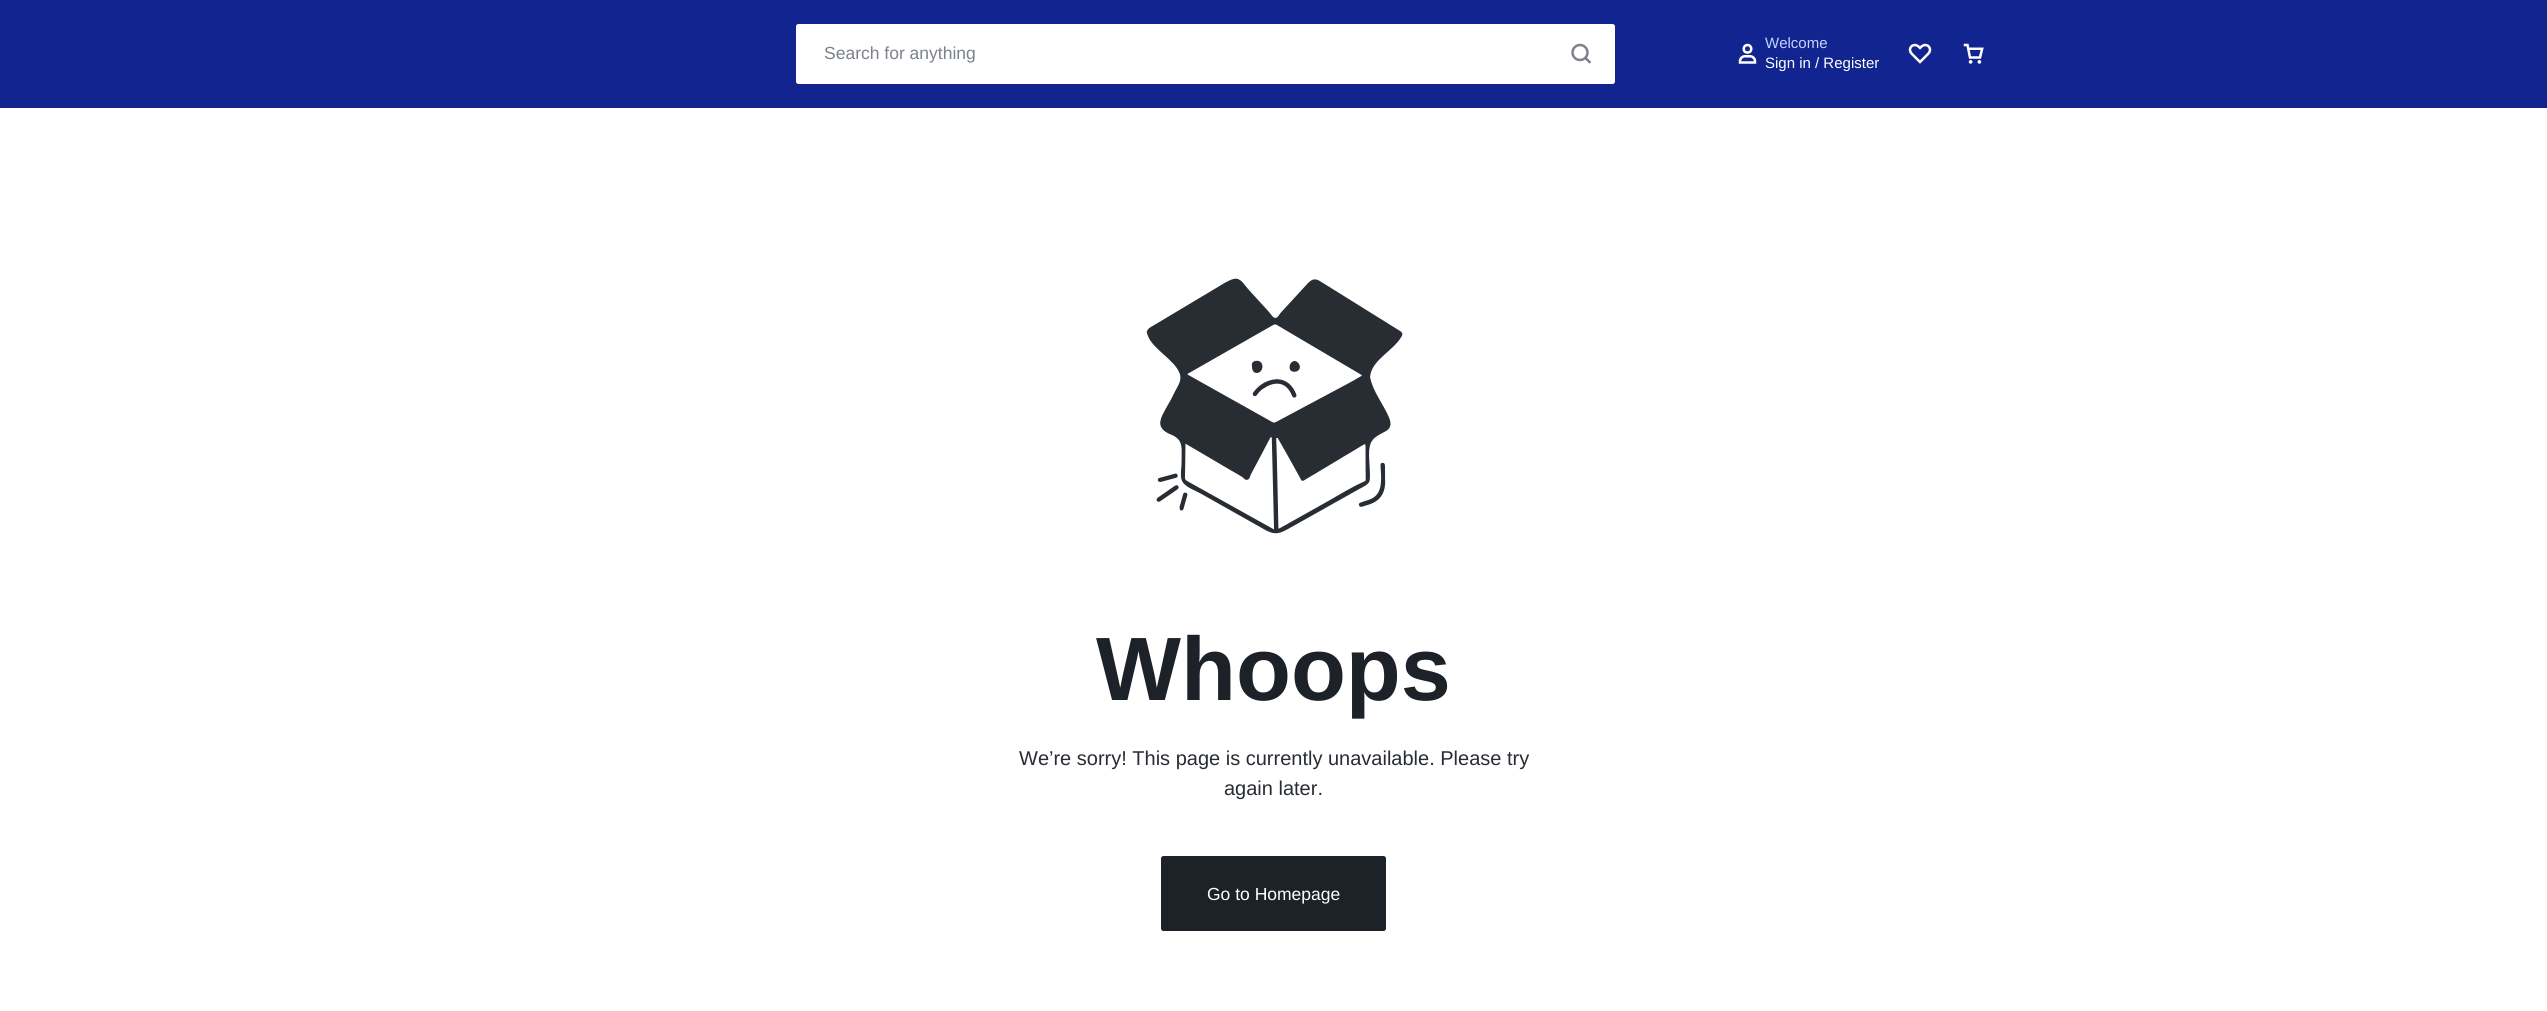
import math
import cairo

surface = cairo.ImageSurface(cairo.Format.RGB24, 2547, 1011)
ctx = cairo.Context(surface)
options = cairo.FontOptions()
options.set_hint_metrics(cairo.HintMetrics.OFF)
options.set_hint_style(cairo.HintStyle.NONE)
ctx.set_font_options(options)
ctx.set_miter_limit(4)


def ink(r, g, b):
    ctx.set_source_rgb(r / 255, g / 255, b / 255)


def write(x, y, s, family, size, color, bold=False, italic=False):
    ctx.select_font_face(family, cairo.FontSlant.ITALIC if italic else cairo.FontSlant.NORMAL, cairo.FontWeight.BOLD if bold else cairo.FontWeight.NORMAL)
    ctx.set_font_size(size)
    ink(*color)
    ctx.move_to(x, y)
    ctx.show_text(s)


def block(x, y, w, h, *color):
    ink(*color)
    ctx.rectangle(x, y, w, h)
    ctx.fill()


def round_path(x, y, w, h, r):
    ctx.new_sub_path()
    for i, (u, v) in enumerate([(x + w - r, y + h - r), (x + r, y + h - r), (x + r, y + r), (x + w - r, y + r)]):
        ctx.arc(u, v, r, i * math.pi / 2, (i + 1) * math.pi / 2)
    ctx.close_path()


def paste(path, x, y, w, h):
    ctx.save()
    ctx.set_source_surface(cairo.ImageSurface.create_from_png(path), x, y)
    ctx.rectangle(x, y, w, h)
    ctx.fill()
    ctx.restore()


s1 = dict(family="Liberation Sans", size=17.5, color=(124, 129, 139))
s2 = dict(family="Liberation Sans", size=15, color=(196, 213, 255))
s3 = dict(family="Liberation Sans", size=15, color=(255, 255, 255))
s4 = dict(family="Liberation Sans", size=90, color=(29, 33, 40), bold=True)
s5 = dict(family="Liberation Sans", size=20, color=(40, 44, 51))
s6 = dict(family="Liberation Sans", size=17.5, color=(255, 255, 255))

ink(255, 255, 255)
ctx.paint()
block(0, 0, 2547, 108, 17, 36, 143)
ink(255, 255, 255)
round_path(796, 24, 819, 60, 2.5)
ctx.fill()
write(824, 59, "Search for anything", **s1)
paste("pic1.png", 1571, 43, 21, 21)
paste("pic2.png", 1738, 43, 19, 21)
write(1765, 48, "Welcome", **s2)
write(1765, 68, "Sign in / Register", **s3)
paste("pic3.png", 1908, 43, 24, 21)
paste("pic4.png", 1963, 43, 21, 21)
paste("pic5.png", 1146, 278, 257, 256)
write(1096, 700, "Whoops", **s4)
write(1019, 765, "We’re sorry! This page is currently unavailable. Please try", **s5)
write(1224, 795, "again later.", **s5)
ink(29, 33, 40)
round_path(1161, 856, 225, 75, 2.5)
ctx.fill()
write(1207, 900, "Go to Homepage", **s6)
surface.write_to_png("screenshot.png")
